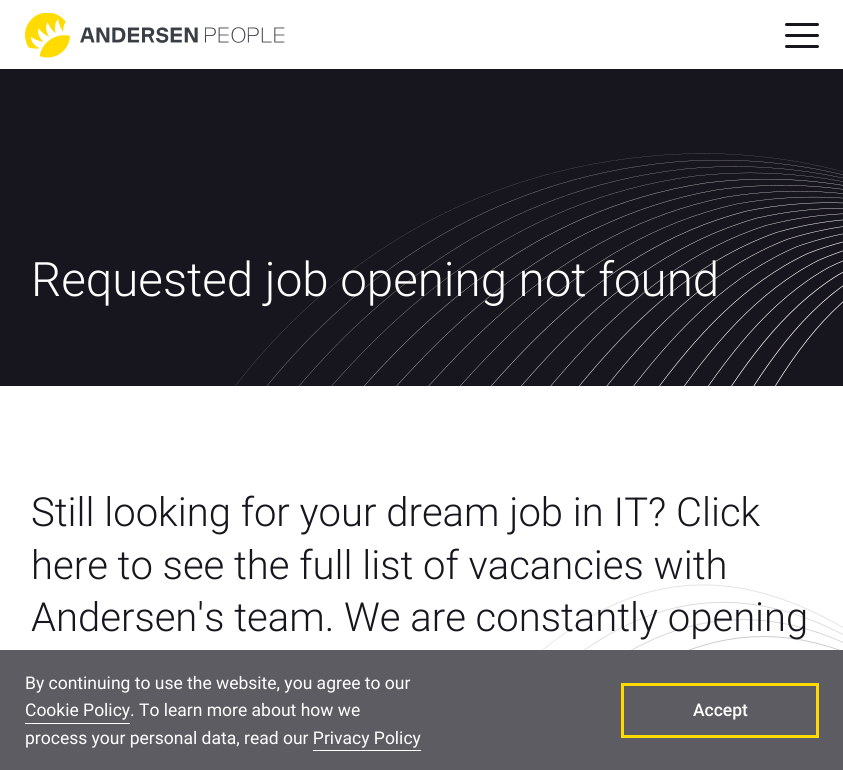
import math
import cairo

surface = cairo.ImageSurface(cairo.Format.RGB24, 843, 770)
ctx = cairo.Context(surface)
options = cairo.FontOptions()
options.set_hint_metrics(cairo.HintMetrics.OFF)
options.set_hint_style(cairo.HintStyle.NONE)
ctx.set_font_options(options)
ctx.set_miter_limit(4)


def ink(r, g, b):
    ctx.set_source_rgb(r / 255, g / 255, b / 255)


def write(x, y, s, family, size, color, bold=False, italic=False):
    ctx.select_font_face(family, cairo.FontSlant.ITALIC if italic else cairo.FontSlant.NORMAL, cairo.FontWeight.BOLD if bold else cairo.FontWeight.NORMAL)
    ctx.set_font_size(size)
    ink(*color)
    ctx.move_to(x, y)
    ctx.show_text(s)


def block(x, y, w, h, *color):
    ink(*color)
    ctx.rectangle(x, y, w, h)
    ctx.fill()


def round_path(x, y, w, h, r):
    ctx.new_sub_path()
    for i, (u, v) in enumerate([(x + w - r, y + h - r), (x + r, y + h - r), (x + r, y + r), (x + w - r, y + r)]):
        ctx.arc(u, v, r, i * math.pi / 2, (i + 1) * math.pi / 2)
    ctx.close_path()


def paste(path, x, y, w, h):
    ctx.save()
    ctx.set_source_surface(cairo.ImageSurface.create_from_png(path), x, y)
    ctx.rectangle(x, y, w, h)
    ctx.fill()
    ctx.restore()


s1 = dict(family="Roboto Light", size=47.5, color=(255, 255, 255))
s2 = dict(family="Roboto Light", size=40, color=(23, 22, 30))
s3 = dict(family="Roboto", size=17.5, color=(255, 255, 255))
s4 = dict(family="Roboto Medium", size=17.5, color=(255, 255, 255))

ink(23, 22, 30)
ctx.paint()
block(0, 0, 843, 69, 255, 255, 255)
paste("pic1.png", 25, 13, 260, 45)
ink(23, 22, 30)
round_path(785, 23, 34, 3, 1.5)
ctx.fill()
round_path(785, 34, 34, 3, 1.5)
ctx.fill()
round_path(785, 45, 34, 3, 1.5)
ctx.fill()
paste("pic2.png", 235, 153, 608, 233)
write(31, 296, "Requested job opening not found", **s1)
block(0, 386, 843, 264, 255, 255, 255)
paste("pic3.png", 542, 584, 301, 66)
write(31, 526, "Still looking for your dream job in IT? Click", **s2)
write(31, 579, "here to see the full list of vacancies with", **s2)
write(31, 631, "Andersen's team. We are constantly opening", **s2)
block(0, 650, 843, 120, 93, 92, 98)
write(25, 689, "By continuing to use the website, you agree to our", **s3)
write(25, 716, "Cookie Policy", **s3)
block(25, 723, 105, 1, 255, 255, 255)
write(130, 716, ". To learn more about how we", **s3)
write(25, 744, "process your personal data, read our Privacy Policy", **s3)
block(313, 750, 108, 1, 255, 255, 255)
ctx.rectangle(622.5, 684.5, 195, 52)
ink(254, 218, 0)
ctx.set_line_width(3)
ctx.stroke()
write(693, 716, "Accept", **s4)
surface.write_to_png("screenshot.png")
